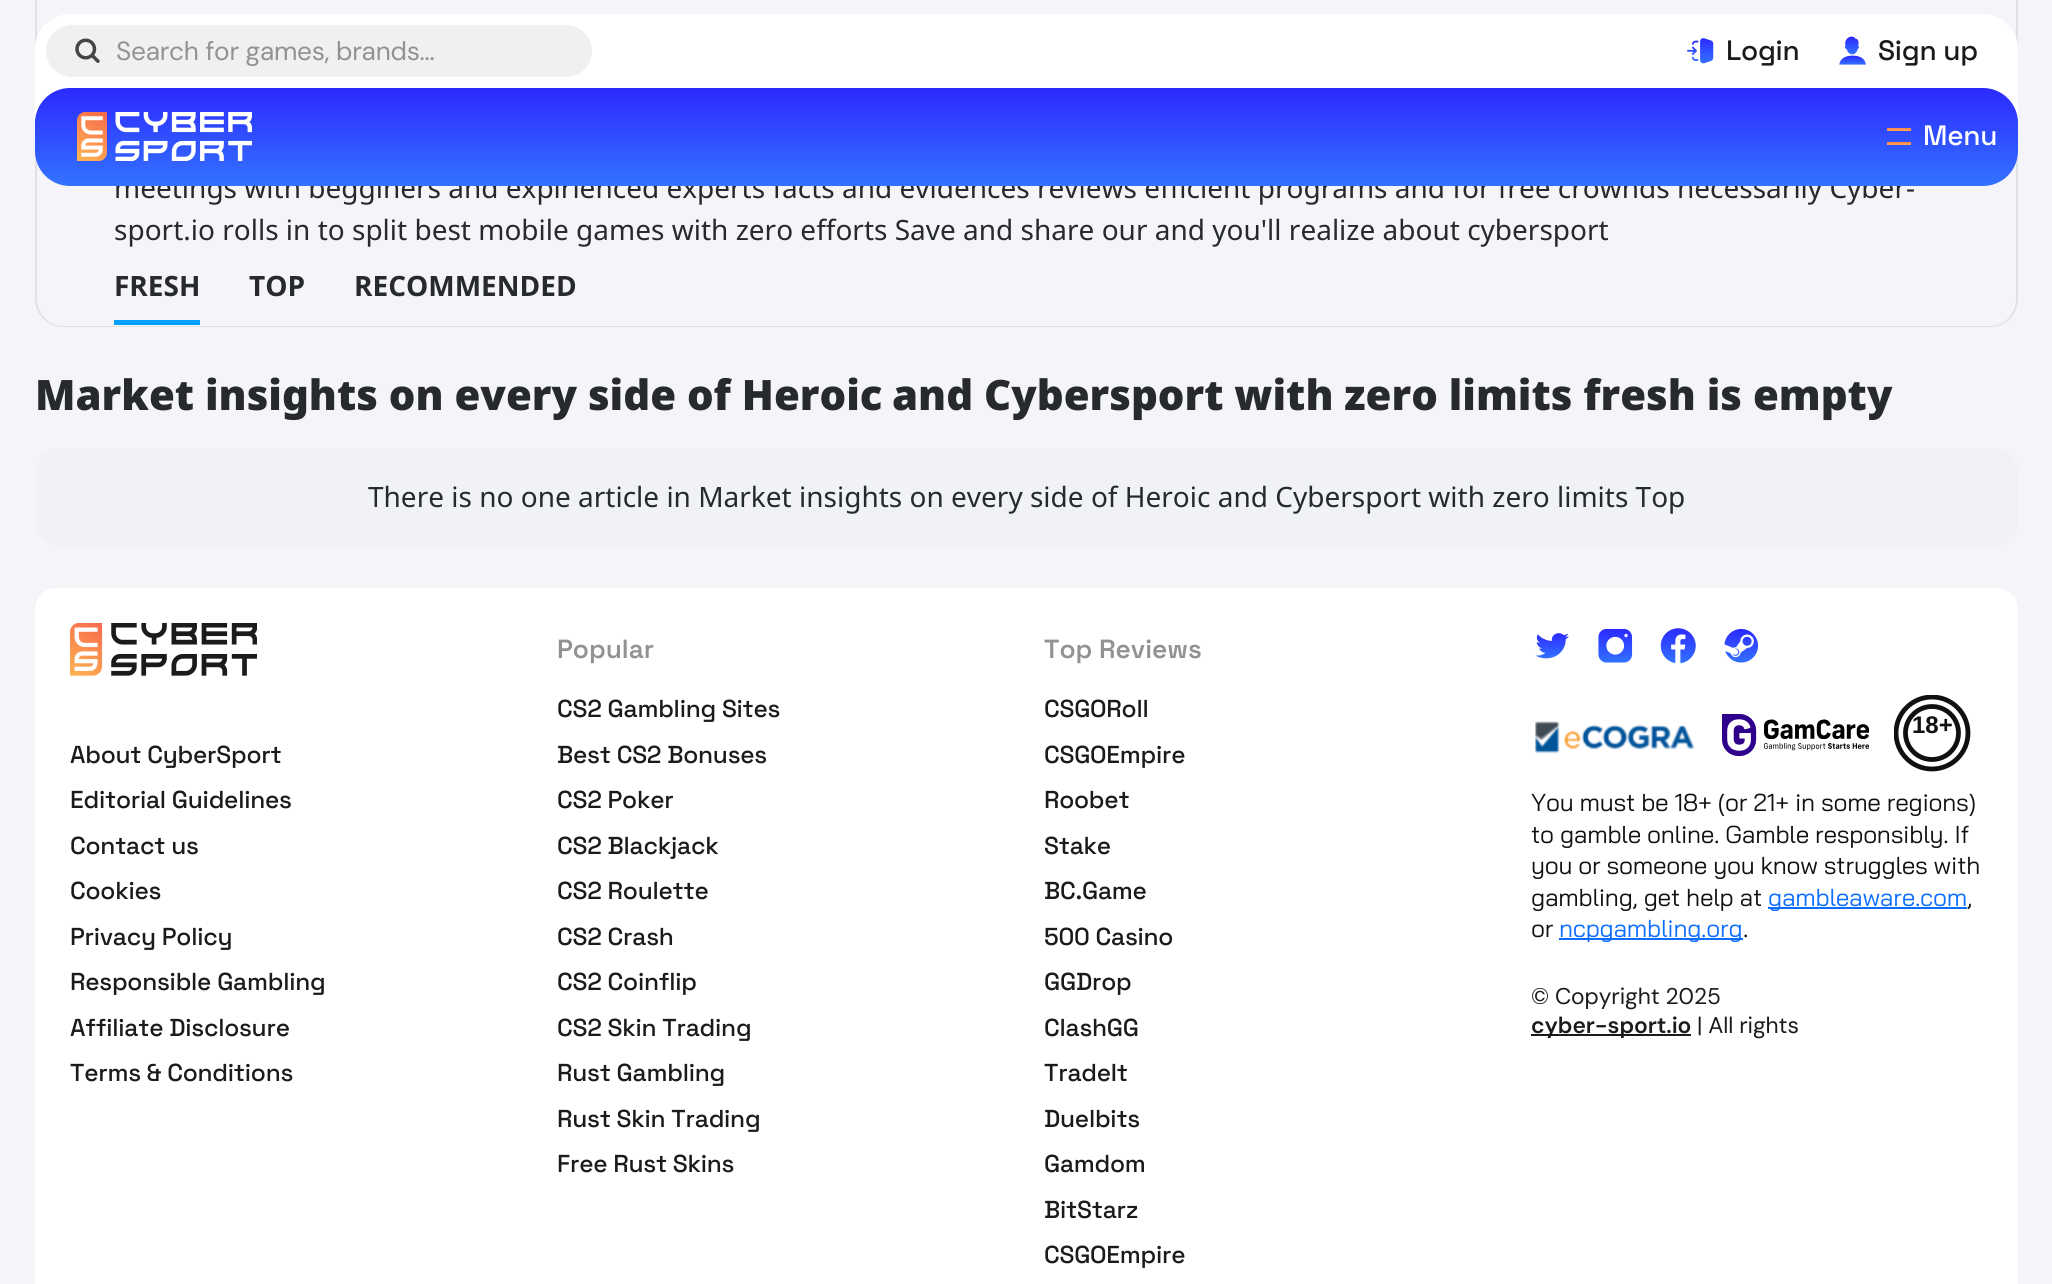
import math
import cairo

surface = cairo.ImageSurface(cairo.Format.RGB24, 2052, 1284)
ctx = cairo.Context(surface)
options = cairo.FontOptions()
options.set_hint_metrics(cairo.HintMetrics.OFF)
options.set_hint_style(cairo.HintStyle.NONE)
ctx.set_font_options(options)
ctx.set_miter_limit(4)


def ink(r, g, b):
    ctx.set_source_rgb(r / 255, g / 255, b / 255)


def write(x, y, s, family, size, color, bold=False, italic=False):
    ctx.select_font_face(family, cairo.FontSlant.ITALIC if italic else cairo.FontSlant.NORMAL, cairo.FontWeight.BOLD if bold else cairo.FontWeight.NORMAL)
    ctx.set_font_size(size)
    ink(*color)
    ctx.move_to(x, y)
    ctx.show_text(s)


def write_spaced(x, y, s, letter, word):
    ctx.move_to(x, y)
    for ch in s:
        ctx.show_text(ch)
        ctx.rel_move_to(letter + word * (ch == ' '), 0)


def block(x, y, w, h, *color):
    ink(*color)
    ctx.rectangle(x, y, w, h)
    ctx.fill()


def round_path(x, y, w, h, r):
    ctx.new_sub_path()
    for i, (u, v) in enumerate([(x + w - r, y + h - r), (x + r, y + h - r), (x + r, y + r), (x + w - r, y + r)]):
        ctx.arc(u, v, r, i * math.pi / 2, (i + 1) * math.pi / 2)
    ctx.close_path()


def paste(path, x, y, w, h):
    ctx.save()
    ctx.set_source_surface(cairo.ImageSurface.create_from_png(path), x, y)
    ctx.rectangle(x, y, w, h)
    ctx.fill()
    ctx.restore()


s1 = dict(family="Noto Sans", size=28, color=(38, 41, 45))
s2 = dict(family="Noto Sans", size=28, color=(38, 41, 45), bold=True)
s3 = dict(family="Noto Sans Black", size=41.9, color=(38, 41, 45))
s4 = dict(family="Space Grotesk SemiBold", size=26.25, color=(145, 146, 146))
s5 = dict(family="Liberation Sans", size=24, color=(17, 17, 17), bold=True)

ink(244, 244, 249)
ctx.paint()
ink(222, 226, 230)
ctx.set_fill_rule(cairo.FillRule.EVEN_ODD)
ctx.new_path()
ctx.move_to(35, -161)
ctx.line_to(2018, -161)
ctx.line_to(2018, 299)
ctx.curve_to(2018, 315, 2005, 327, 1990, 327)
ctx.line_to(63, 327)
ctx.curve_to(48, 327, 35, 315, 35, 299)
ctx.close_path()
ctx.move_to(37, -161)
ctx.line_to(2016, -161)
ctx.line_to(2016, 299)
ctx.curve_to(2016, 314, 2004, 326, 1990, 326)
ctx.line_to(63, 326)
ctx.curve_to(49, 326, 37, 314, 37, 299)
ctx.close_path()
ctx.fill()
write(114, 198, "meetings with begginers and expirienced experts facts and evidences reviews efficient programs and for free crownds necessarily Cyber-", **s1)
ink(255, 255, 255)
round_path(35, 14, 1983, 172, 35)
ctx.fill()
ink(240, 240, 240)
round_path(46, 25, 546, 52, 26)
ctx.fill()
paste("pic1.png", 75, 38, 25, 25)
ctx.select_font_face("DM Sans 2")
ctx.set_font_size(26.25)
ink(145, 146, 146)
write_spaced(116, 60, "Search for games, brands...", -0.25, 0)
paste("pic2.png", 1687, 38, 27, 26)
ctx.select_font_face("Space Grotesk Medium")
ctx.set_font_size(28)
ink(25, 27, 28)
write_spaced(1726, 60, "Login", -0.25, 0)
paste("pic3.png", 1839, 36, 27, 29)
write_spaced(1878, 60, "Sign up", -0.25, 0)
gradient = cairo.LinearGradient(1026, 87, 1026, 247)
gradient.add_color_stop_rgba(0, 0.173, 0.161, 1, 1)
gradient.add_color_stop_rgba(1, 0.216, 0.627, 1, 1)
ctx.set_source(gradient)
round_path(35, 88, 1983, 98, 35)
ctx.fill()
paste("pic4.png", 77, 112, 175, 49)
gradient = cairo.LinearGradient(1916, 140, 1916, 146)
gradient.add_color_stop_rgba(0, 0.965, 0.412, 0.298, 1)
gradient.add_color_stop_rgba(1, 0.996, 0.71, 0.322, 1)
ctx.set_source(gradient)
ctx.rectangle(1887, 142, 24, 3)
ctx.fill()
gradient = cairo.LinearGradient(1916, 126, 1916, 132)
gradient.add_color_stop_rgba(0, 0.965, 0.412, 0.298, 1)
gradient.add_color_stop_rgba(1, 0.996, 0.71, 0.322, 1)
ctx.set_source(gradient)
ctx.rectangle(1887, 128, 24, 3)
ctx.fill()
ink(255, 255, 255)
write_spaced(1923, 145, "Menu", -0.25, 0)
write(114, 240, "sport.io rolls in to split best mobile games with zero efforts Save and share our and you'll realize about cybersport", **s1)
block(114, 320, 86, 5, 0, 160, 251)
write(114, 296, "FRESH", **s2)
write(249, 296, "TOP", **s2)
write(354, 296, "RECOMMENDED", **s2)
write(35, 410, "Market insights on every side of Heroic", **s3)
write(892, 410, "and Cybersport with zero limits fresh is empty", **s3)
ink(240, 242, 245)
round_path(35, 448, 1983, 98, 25)
ctx.fill()
write(368, 507, "There is no one article in Market insights on every side of Heroic and Cybersport with zero limits Top", **s1)
ink(255, 255, 255)
ctx.new_path()
ctx.move_to(56, 588)
ctx.line_to(1997, 588)
ctx.curve_to(2008.5, 588, 2018, 597.5, 2018, 609)
ctx.line_to(2018, 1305)
ctx.line_to(35, 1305)
ctx.line_to(35, 609)
ctx.curve_to(35, 597.5, 44.5, 588, 56, 588)
ctx.close_path()
ctx.fill()
paste("pic5.png", 70, 623, 187, 53)
ctx.select_font_face("Space Grotesk Medium")
ctx.set_font_size(24.5)
ink(25, 27, 28)
write_spaced(70, 763, "About CyberSport", -0.25, 0)
write_spaced(70, 808, "Editorial Guidelines", -0.25, 0)
write_spaced(70, 854, "Contact us", -0.25, 0)
write_spaced(70, 899, "Cookies", -0.25, 0)
write_spaced(70, 945, "Privacy Policy", -0.25, 0)
write_spaced(70, 990, "Responsible Gambling", -0.25, 0)
write_spaced(70, 1036, "Affiliate Disclosure", -0.25, 0)
write_spaced(70, 1081, "Terms & Conditions", -0.25, 0)
write(557, 658, "Popular", **s4)
ctx.select_font_face("Space Grotesk Medium")
ctx.set_font_size(24.5)
ink(25, 27, 28)
write_spaced(557, 717, "CS2 Gambling Sites", -0.25, 0)
write_spaced(557, 763, "Best CS2 Bonuses", -0.25, 0)
write_spaced(557, 808, "CS2 Poker", -0.25, 0)
write_spaced(557, 854, "CS2 Blackjack", -0.25, 0)
write_spaced(557, 899, "CS2 Roulette", -0.25, 0)
write_spaced(557, 945, "CS2 Crash", -0.25, 0)
write_spaced(557, 990, "CS2 Coinflip", -0.25, 0)
write_spaced(557, 1036, "CS2 Skin Trading", -0.25, 0)
write_spaced(557, 1081, "Rust Gambling", -0.25, 0)
write_spaced(557, 1127, "Rust Skin Trading", -0.25, 0)
write_spaced(557, 1172, "Free Rust Skins", -0.25, 0)
write(1044, 658, "Top Reviews", **s4)
ctx.select_font_face("Space Grotesk Medium")
ctx.set_font_size(24.5)
ink(25, 27, 28)
write_spaced(1044, 717, "CSGORoll", -0.25, 0)
write_spaced(1044, 763, "CSGOEmpire", -0.25, 0)
write_spaced(1044, 808, "Roobet", -0.25, 0)
write_spaced(1044, 854, "Stake", -0.25, 0)
write_spaced(1044, 899, "BC.Game", -0.25, 0)
write_spaced(1044, 945, "500 Casino", -0.25, 0)
write_spaced(1044, 990, "GGDrop", -0.25, 0)
write_spaced(1044, 1036, "ClashGG", -0.25, 0)
write_spaced(1044, 1081, "TradeIt", -0.25, 0)
write_spaced(1044, 1127, "Duelbits", -0.25, 0)
write_spaced(1044, 1172, "Gamdom", -0.25, 0)
write_spaced(1044, 1218, "BitStarz", -0.25, 0)
write_spaced(1044, 1263, "CSGOEmpire", -0.25, 0)
paste("pic6.png", 1535, 633, 34, 26)
paste("pic7.png", 1598, 628, 35, 35)
paste("pic8.png", 1660, 628, 36, 36)
paste("pic9.png", 1724, 628, 35, 35)
paste("pic10.png", 1535, 721, 160, 33)
paste("pic11.png", 1722, 714, 147, 42)
ctx.save()
ctx.set_fill_rule(cairo.FillRule.WINDING)
ctx.rectangle(1894, 695, 77, 77)
ctx.clip()
ctx.arc(1932, 733, 36, 0, 2 * math.pi)
ink(16, 16, 17)
ctx.set_line_width(4.8)
ctx.stroke()
ctx.restore()
ctx.arc(1932, 733, 26.5, 0, 2 * math.pi)
ink(16, 16, 17)
ctx.set_line_width(4.8)
ctx.stroke()
write(1912, 733, "18+", **s5)
ctx.select_font_face("Bai Jamjuree")
ctx.set_font_size(24.5)
write_spaced(1531, 811, "You must be 18+ (or 21+ in some regions)", -0.25, 0)
write_spaced(1531, 843, "to gamble online. Gamble responsibly. If", -0.25, 0)
write_spaced(1531, 874, "you or someone you know struggles with", -0.25, 0)
write_spaced(1531, 906, "gambling, get help at", -0.25, 0)
block(1768, 907, 199, 2, 13, 110, 253)
write_spaced(1768, 906, "gambleaware.com", -0.25, 0)
ink(17, 17, 17)
write_spaced(1967, 906, ",", -0.25, 0)
write_spaced(1531, 937, "or", -0.25, 0)
block(1559, 938, 184, 2, 13, 110, 253)
write_spaced(1559, 937, "ncpgambling.org", -0.25, 0)
ink(17, 17, 17)
write_spaced(1743, 937, ".", -0.25, 0)
ctx.select_font_face("DM Sans")
ctx.set_font_size(22.75)
ink(25, 27, 28)
write_spaced(1531, 1004, "© Copyright 2025", -0.1, 0)
block(1531, 1034, 160, 2, 25, 27, 28)
ctx.select_font_face("DM Sans SemiBold")
write_spaced(1531, 1033, "cyber-sport.io", -0.1, 0)
ctx.select_font_face("DM Sans")
write_spaced(1697, 1033, "| All rights", -0.1, 0)
surface.write_to_png("screenshot.png")
